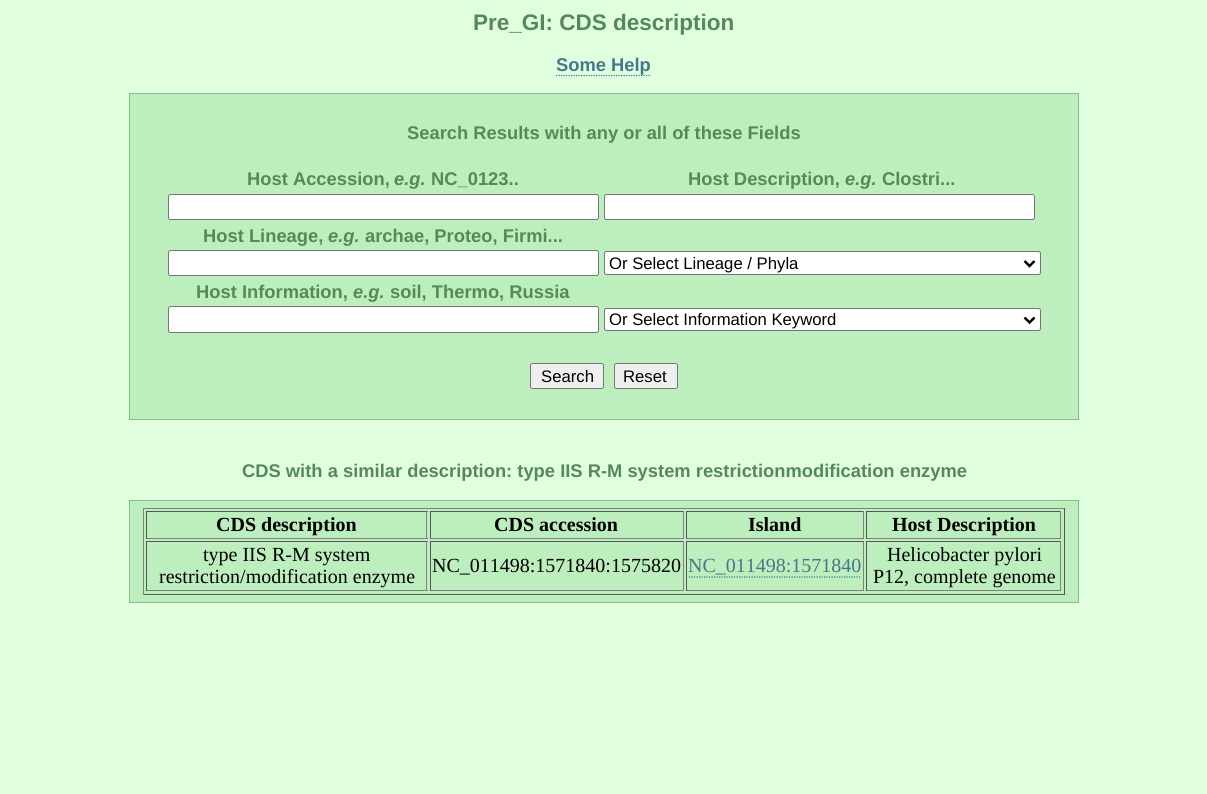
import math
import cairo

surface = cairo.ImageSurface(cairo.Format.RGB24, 1207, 794)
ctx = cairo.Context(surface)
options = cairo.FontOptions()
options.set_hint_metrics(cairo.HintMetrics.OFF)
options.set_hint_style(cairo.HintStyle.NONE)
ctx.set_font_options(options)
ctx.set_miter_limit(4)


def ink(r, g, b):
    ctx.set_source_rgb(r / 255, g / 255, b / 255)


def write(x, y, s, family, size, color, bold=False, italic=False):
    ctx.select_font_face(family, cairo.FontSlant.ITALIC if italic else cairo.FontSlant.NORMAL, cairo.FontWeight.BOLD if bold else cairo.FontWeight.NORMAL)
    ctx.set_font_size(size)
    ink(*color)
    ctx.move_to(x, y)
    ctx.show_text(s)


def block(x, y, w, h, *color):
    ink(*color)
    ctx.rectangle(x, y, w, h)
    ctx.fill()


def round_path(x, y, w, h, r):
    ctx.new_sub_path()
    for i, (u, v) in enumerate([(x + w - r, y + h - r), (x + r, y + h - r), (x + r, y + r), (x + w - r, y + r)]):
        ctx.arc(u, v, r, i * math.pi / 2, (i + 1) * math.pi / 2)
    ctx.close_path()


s1 = dict(family="Liberation Sans", size=22.5, color=(87, 136, 87), bold=True)
s2 = dict(family="Liberation Sans", size=18.35, color=(70, 119, 138), bold=True)
s3 = dict(family="Liberation Sans", size=18.35, color=(87, 136, 87), bold=True)
s4 = dict(family="Liberation Sans", size=18.35, color=(87, 136, 87), bold=True, italic=True)
s5 = dict(family="Liberation Sans", size=16.7, color=(0, 0, 0))
s6 = dict(family="Liberation Serif", size=20, color=(0, 0, 0), bold=True)
s7 = dict(family="Liberation Serif", size=20, color=(0, 0, 0))
s8 = dict(family="Liberation Serif", size=20, color=(70, 119, 138))

ink(223, 255, 223)
ctx.paint()
write(473, 30, "Pre_GI: CDS description", **s1)
ctx.new_path()
ctx.move_to(556, 75.5)
ctx.line_to(651, 75.5)
ink(70, 119, 138)
ctx.set_line_width(1.2)
ctx.set_dash([1.25, 1.25])
ctx.stroke()
write(556, 71, "Some Help", **s2)
ink(189, 238, 189)
ctx.rectangle(129.5, 93.5, 949, 326)
ctx.fill_preserve()
ink(138, 187, 138)
ctx.set_line_width(1)
ctx.set_dash([])
ctx.stroke()
write(407, 139, "Search Results with any or all of these Fields", **s3)
write(247, 185, "Host Accession,", **s3)
write(394, 185, "e.g.", **s4)
write(431, 185, "NC_0123..", **s3)
write(688, 185, "Host Description,", **s3)
write(845, 185, "e.g.", **s4)
write(882, 185, "Clostri...", **s3)
ink(255, 255, 255)
round_path(168.5, 194.5, 430, 25, 2)
ctx.fill_preserve()
ink(118, 118, 118)
ctx.stroke()
ink(255, 255, 255)
round_path(604.5, 194.5, 430, 25, 2)
ctx.fill_preserve()
ink(118, 118, 118)
ctx.stroke()
write(203, 242, "Host Lineage,", **s3)
write(328, 242, "e.g.", **s4)
write(365, 242, "archae, Proteo, Firmi...", **s3)
ink(255, 255, 255)
round_path(168.5, 250.5, 430, 25, 2)
ctx.fill_preserve()
ink(118, 118, 118)
ctx.stroke()
ink(255, 255, 255)
round_path(604.5, 251.5, 436, 23, 2)
ctx.fill_preserve()
ink(118, 118, 118)
ctx.stroke()
ctx.new_path()
ctx.move_to(1024.5, 261)
ctx.line_to(1029.5, 266)
ctx.line_to(1034.5, 261)
ink(0, 0, 0)
ctx.set_line_width(2.5)
ctx.stroke()
write(609, 269, "Or Select Lineage / Phyla", **s5)
write(196, 298, "Host Information,", **s3)
write(353, 298, "e.g.", **s4)
write(390, 298, "soil, Thermo, Russia", **s3)
ink(255, 255, 255)
round_path(168.5, 306.5, 430, 26, 2)
ctx.fill_preserve()
ink(118, 118, 118)
ctx.set_line_width(1)
ctx.stroke()
ink(255, 255, 255)
round_path(604.5, 308.5, 436, 22, 2)
ctx.fill_preserve()
ink(118, 118, 118)
ctx.stroke()
ctx.new_path()
ctx.move_to(1024.5, 317.5)
ctx.line_to(1029.5, 322.5)
ctx.line_to(1034.5, 317.5)
ink(0, 0, 0)
ctx.set_line_width(2.5)
ctx.stroke()
write(609, 325, "Or Select Information Keyword", **s5)
ink(239, 239, 239)
round_path(530.5, 363.5, 73, 25, 2)
ctx.fill_preserve()
ink(118, 118, 118)
ctx.set_line_width(1)
ctx.stroke()
write(541, 382, "Search", **s5)
ink(239, 239, 239)
round_path(614.5, 363.5, 63, 25, 2)
ctx.fill_preserve()
ink(118, 118, 118)
ctx.stroke()
write(623, 382, "Reset", **s5)
write(242, 477, "CDS with a similar description: type IIS R-M system restrictionmodification enzyme", **s3)
ink(189, 238, 189)
ctx.rectangle(129.5, 500.5, 949, 102)
ctx.fill_preserve()
ink(138, 187, 138)
ctx.stroke()
block(143, 508, 922, 1, 128, 128, 128)
block(1064, 508, 1, 87, 85, 85, 85)
block(143, 594, 922, 1, 85, 85, 85)
block(143, 508, 1, 87, 128, 128, 128)
block(146, 511, 282, 1, 85, 85, 85)
block(426, 511, 1, 28, 128, 128, 128)
block(146, 538, 282, 1, 128, 128, 128)
block(146, 511, 1, 28, 85, 85, 85)
write(216, 531, "CDS description", **s6)
block(430, 511, 254, 1, 85, 85, 85)
block(683, 511, 1, 28, 128, 128, 128)
block(430, 538, 254, 1, 128, 128, 128)
block(430, 511, 1, 28, 85, 85, 85)
write(494, 531, "CDS accession", **s6)
block(686, 511, 178, 1, 85, 85, 85)
block(863, 511, 1, 28, 128, 128, 128)
block(686, 538, 178, 1, 128, 128, 128)
block(686, 511, 1, 28, 85, 85, 85)
write(748, 531, "Island", **s6)
block(866, 511, 195, 1, 85, 85, 85)
block(1060, 511, 1, 28, 128, 128, 128)
block(866, 538, 195, 1, 128, 128, 128)
block(866, 511, 1, 28, 85, 85, 85)
write(892, 531, "Host Description", **s6)
block(146, 541, 282, 1, 85, 85, 85)
block(426, 541, 1, 50, 128, 128, 128)
block(146, 590, 282, 1, 128, 128, 128)
block(146, 541, 1, 50, 85, 85, 85)
write(203, 561, "type IIS R-M system", **s7)
write(159, 583, "restriction/modification enzyme", **s7)
block(430, 541, 254, 1, 85, 85, 85)
block(683, 541, 1, 50, 128, 128, 128)
block(430, 590, 254, 1, 128, 128, 128)
block(430, 541, 1, 50, 85, 85, 85)
write(432, 572, "NC_011498:1571840:1575820", **s7)
block(686, 541, 178, 1, 85, 85, 85)
block(863, 541, 1, 50, 128, 128, 128)
block(686, 590, 178, 1, 128, 128, 128)
block(686, 541, 1, 50, 85, 85, 85)
write(688, 572, "NC_011498:1571840", **s8)
ctx.new_path()
ctx.move_to(689, 577)
ctx.line_to(861, 577)
ctx.set_line_width(1.2)
ctx.set_dash([1.25, 1.25])
ctx.stroke()
block(866, 541, 195, 1, 85, 85, 85)
block(1060, 541, 1, 50, 128, 128, 128)
block(866, 590, 195, 1, 128, 128, 128)
block(866, 541, 1, 50, 85, 85, 85)
write(887, 561, "Helicobacter pylori", **s7)
write(873, 583, "P12, complete genome", **s7)
surface.write_to_png("screenshot.png")
